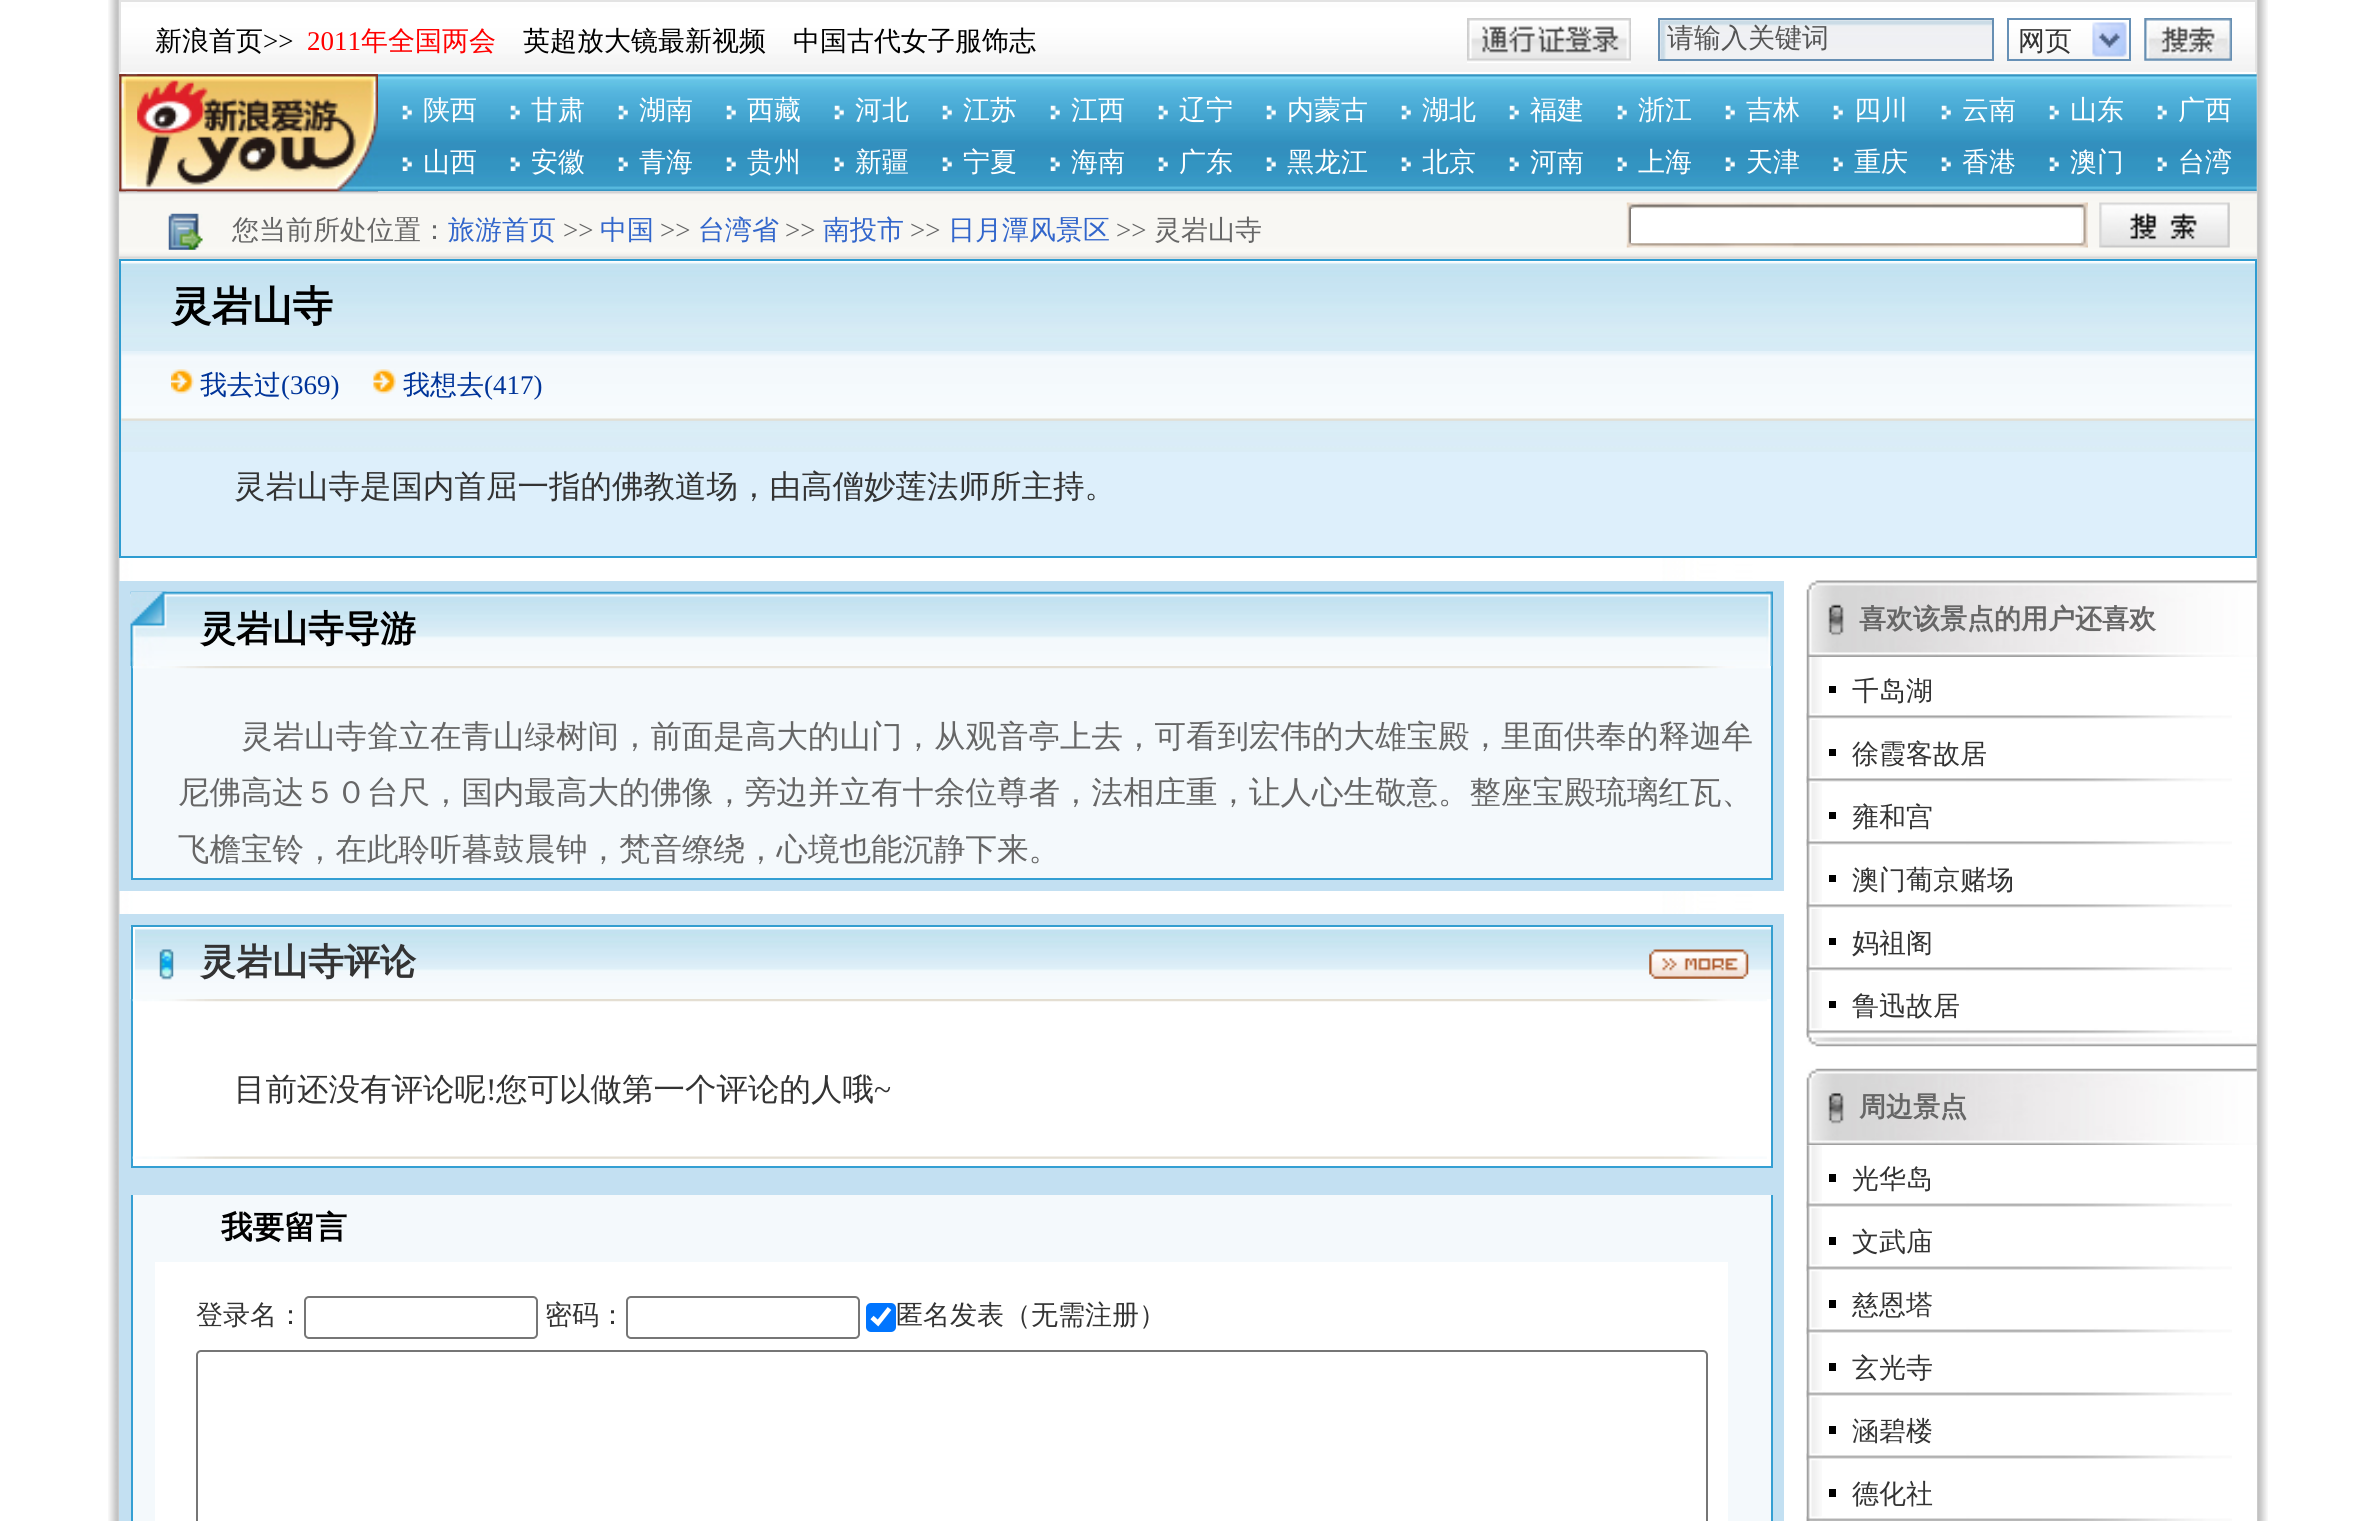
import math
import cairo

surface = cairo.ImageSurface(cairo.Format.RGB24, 2374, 1521)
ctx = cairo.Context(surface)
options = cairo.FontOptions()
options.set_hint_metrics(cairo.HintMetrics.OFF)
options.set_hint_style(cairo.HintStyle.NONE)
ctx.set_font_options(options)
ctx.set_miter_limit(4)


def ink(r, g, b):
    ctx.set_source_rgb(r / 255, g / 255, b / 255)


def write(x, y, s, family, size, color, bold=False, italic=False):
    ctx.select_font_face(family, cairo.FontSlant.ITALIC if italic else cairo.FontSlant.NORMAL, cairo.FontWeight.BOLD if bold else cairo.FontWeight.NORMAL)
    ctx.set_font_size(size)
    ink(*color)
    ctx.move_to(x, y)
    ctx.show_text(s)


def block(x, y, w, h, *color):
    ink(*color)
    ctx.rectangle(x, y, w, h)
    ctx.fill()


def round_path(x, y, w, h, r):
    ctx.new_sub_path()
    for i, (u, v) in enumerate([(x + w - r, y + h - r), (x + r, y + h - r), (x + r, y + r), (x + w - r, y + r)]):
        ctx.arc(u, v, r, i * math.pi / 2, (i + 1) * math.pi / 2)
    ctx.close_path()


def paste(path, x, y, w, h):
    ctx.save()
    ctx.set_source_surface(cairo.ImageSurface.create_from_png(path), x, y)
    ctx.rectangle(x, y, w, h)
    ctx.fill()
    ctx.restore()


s1 = dict(family="WenQuanYi Zen Hei Medium", size=27, color=(0, 0, 0))
s2 = dict(family="Liberation Serif", size=27, color=(0, 0, 0))
s3 = dict(family="Liberation Serif", size=27, color=(255, 0, 0))
s4 = dict(family="WenQuanYi Zen Hei Medium", size=27, color=(255, 0, 0))
s5 = dict(family="WenQuanYi Zen Hei Medium", size=27, color=(85, 85, 85))
s6 = dict(family="WenQuanYi Zen Hei Medium", size=27, color=(51, 51, 51))
s7 = dict(family="WenQuanYi Zen Hei Medium", size=27, color=(255, 255, 255))
s8 = dict(family="WenQuanYi Zen Hei Medium", size=27, color=(102, 102, 102))
s9 = dict(family="WenQuanYi Zen Hei Medium", size=27, color=(50, 102, 203))
s10 = dict(family="Liberation Serif", size=27, color=(102, 102, 102))
s11 = dict(family="WenQuanYi Zen Hei", size=40.5, color=(0, 0, 0), bold=True)
s12 = dict(family="WenQuanYi Zen Hei Medium", size=27, color=(0, 52, 153))
s13 = dict(family="Liberation Serif", size=27, color=(0, 52, 153))
s14 = dict(family="WenQuanYi Zen Hei Medium", size=31.5, color=(51, 51, 51))
s15 = dict(family="WenQuanYi Zen Hei", size=36, color=(0, 0, 0), bold=True)
s16 = dict(family="WenQuanYi Zen Hei Medium", size=31.5, color=(102, 102, 102))
s17 = dict(family="WenQuanYi Zen Hei", size=36, color=(51, 51, 51), bold=True)
s18 = dict(family="Liberation Serif", size=31.5, color=(51, 51, 51))
s19 = dict(family="WenQuanYi Zen Hei", size=31.5, color=(0, 0, 0), bold=True)
s20 = dict(family="WenQuanYi Zen Hei", size=27, color=(102, 102, 102), bold=True)

ink(255, 255, 255)
ctx.paint()
paste("pic1.png", 108, 0, 2160, 1521)
paste("pic2.png", 121, 2, 2134, 70)
block(119, 0, 2138, 2, 227, 227, 227)
block(2255, 0, 2, 72, 227, 227, 227)
block(119, 0, 2, 72, 227, 227, 227)
write(155, 50, "新浪首页", **s1)
write(263, 50, ">>", **s2)
write(307, 50, "2011", **s3)
write(361, 50, "年全国两会", **s4)
write(523, 50, "英超放大镜最新视频", **s1)
write(793, 50, "中国古代女子服饰志", **s1)
paste("pic3.png", 1467, 18, 164, 45)
block(1660, 20, 332, 39, 237, 241, 244)
paste("pic4.png", 1660, 20, 332, 39)
ctx.rectangle(1659, 19, 334, 41)
ink(103, 143, 179)
ctx.stroke()
write(1667, 47, "请输入关键词", **s5)
paste("pic5.png", 2092, 22, 35, 35)
ctx.rectangle(2008, 19, 122, 41)
ink(102, 144, 182)
ctx.stroke()
write(2018, 50, "网页", **s6)
paste("pic6.png", 2144, 18, 88, 43)
paste("pic7.png", 119, 74, 2138, 118)
paste("pic13.png", 119, 191, 2138, 68)
paste("pic8.png", 119, 74, 259, 118)
paste("pic9.png", 119, 74, 7, 118)
paste("pic10.png", 137, 74, 241, 118)
paste("pic11.png", 402, 105, 10, 15)
write(423, 119, "陕西", **s7)
paste("pic11.png", 510, 105, 10, 15)
write(531, 119, "甘肃", **s7)
paste("pic11.png", 618, 105, 10, 15)
write(639, 119, "湖南", **s7)
paste("pic11.png", 726, 105, 10, 15)
write(747, 119, "西藏", **s7)
paste("pic11.png", 834, 105, 10, 15)
write(855, 119, "河北", **s7)
paste("pic11.png", 942, 105, 10, 15)
write(963, 119, "江苏", **s7)
paste("pic11.png", 1050, 105, 10, 15)
write(1071, 119, "江西", **s7)
paste("pic11.png", 1158, 105, 10, 15)
write(1179, 119, "辽宁", **s7)
paste("pic11.png", 1266, 105, 10, 15)
write(1287, 119, "内蒙古", **s7)
paste("pic11.png", 1401, 105, 10, 15)
write(1422, 119, "湖北", **s7)
paste("pic11.png", 1509, 105, 10, 15)
write(1530, 119, "福建", **s7)
paste("pic11.png", 1617, 105, 10, 15)
write(1638, 119, "浙江", **s7)
paste("pic11.png", 1725, 105, 10, 15)
write(1746, 119, "吉林", **s7)
paste("pic11.png", 1833, 105, 10, 15)
write(1854, 119, "四川", **s7)
paste("pic11.png", 1941, 105, 10, 15)
write(1962, 119, "云南", **s7)
paste("pic11.png", 2049, 105, 10, 15)
write(2070, 119, "山东", **s7)
paste("pic11.png", 2157, 105, 10, 15)
write(2178, 119, "广西", **s7)
paste("pic12.png", 402, 157, 10, 14)
write(423, 171, "山西", **s7)
paste("pic12.png", 510, 157, 10, 14)
write(531, 171, "安徽", **s7)
paste("pic12.png", 618, 157, 10, 14)
write(639, 171, "青海", **s7)
paste("pic12.png", 726, 157, 10, 14)
write(747, 171, "贵州", **s7)
paste("pic12.png", 834, 157, 10, 14)
write(855, 171, "新疆", **s7)
paste("pic12.png", 942, 157, 10, 14)
write(963, 171, "宁夏", **s7)
paste("pic12.png", 1050, 157, 10, 14)
write(1071, 171, "海南", **s7)
paste("pic12.png", 1158, 157, 10, 14)
write(1179, 171, "广东", **s7)
paste("pic12.png", 1266, 157, 10, 14)
write(1287, 171, "黑龙江", **s7)
paste("pic12.png", 1401, 157, 10, 14)
write(1422, 171, "北京", **s7)
paste("pic12.png", 1509, 157, 10, 14)
write(1530, 171, "河南", **s7)
paste("pic12.png", 1617, 157, 10, 14)
write(1638, 171, "上海", **s7)
paste("pic12.png", 1725, 157, 10, 14)
write(1746, 171, "天津", **s7)
paste("pic12.png", 1833, 157, 10, 14)
write(1854, 171, "重庆", **s7)
paste("pic12.png", 1941, 157, 10, 14)
write(1962, 171, "香港", **s7)
paste("pic12.png", 2049, 157, 10, 14)
write(2070, 171, "澳门", **s7)
paste("pic12.png", 2157, 157, 10, 14)
write(2178, 171, "台湾", **s7)
paste("pic14.png", 168, 213, 35, 37)
write(232, 239, "您当前所处位置：", **s8)
write(448, 239, "旅游首页", **s9)
write(563, 239, ">>", **s10)
write(600, 239, "中国", **s9)
write(660, 239, ">>", **s10)
write(698, 239, "台湾省", **s9)
write(785, 239, ">>", **s10)
write(823, 239, "南投市", **s9)
write(910, 239, ">>", **s10)
write(948, 239, "日月潭风景区", **s9)
write(1116, 239, ">>", **s10)
write(1154, 239, "灵岩山寺", **s8)
paste("pic15.png", 1626, 202, 462, 46)
block(1631, 209, 450, 34, 255, 255, 255)
paste("pic16.png", 2099, 202, 131, 46)
block(121, 452, 2134, 104, 221, 239, 251)
paste("pic17.png", 121, 261, 2134, 191)
ctx.rectangle(120, 260, 2136, 297)
ink(46, 156, 209)
ctx.stroke()
write(171, 320, "灵岩山寺", **s11)
paste("pic18.png", 121, 351, 2134, 70)
paste("pic19.png", 171, 369, 23, 25)
write(200, 394, "我去过", **s12)
write(281, 394, "(369)", **s13)
paste("pic20.png", 373, 369, 23, 25)
write(403, 394, "我想去", **s12)
write(484, 394, "(417)", **s13)
write(234, 497, "灵岩山寺是国内首屈一指的佛教道场，由高僧妙莲法师所主持。", **s14)
block(119, 581, 1665, 310, 195, 224, 242)
paste("pic21.png", 130, 591, 1643, 75)
paste("pic22.png", 130, 591, 37, 75)
write(200, 641, "灵岩山寺导游", **s15)
paste("pic23.png", 1766, 591, 7, 75)
block(133, 666, 1638, 212, 244, 249, 252)
block(1771, 666, 2, 214, 52, 159, 211)
block(131, 878, 1642, 2, 52, 159, 211)
block(131, 666, 2, 214, 52, 159, 211)
paste("pic24.png", 132, 666, 1639, 3)
write(241, 747, "灵岩山寺耸立在青山绿树间，前面是高大的山门，从观音亭上去，可看到宏伟的大雄宝殿，里面供奉的释迦牟", **s16)
write(178, 803, "尼佛高达５０台尺，国内最高大的佛像，旁边并立有十余位尊者，法相庄重，让人心生敬意。整座宝殿琉璃红瓦、", **s16)
write(178, 860, "飞檐宝铃，在此聆听暮鼓晨钟，梵音缭绕，心境也能沉静下来。", **s16)
block(119, 914, 1665, 607, 195, 224, 242)
paste("pic25.png", 130, 927, 1641, 72)
block(131, 925, 1642, 2, 52, 158, 208)
block(1771, 925, 2, 74, 52, 158, 208)
block(131, 925, 2, 74, 52, 158, 208)
paste("pic26.png", 159, 949, 15, 31)
block(133, 927, 2, 72, 255, 255, 255)
write(200, 974, "灵岩山寺评论", **s17)
paste("pic27.png", 1649, 949, 100, 30)
block(133, 999, 1638, 167, 255, 255, 255)
block(1771, 999, 2, 169, 52, 159, 211)
block(131, 1166, 1642, 2, 52, 159, 211)
block(131, 999, 2, 169, 52, 159, 211)
paste("pic28.png", 132, 999, 1635, 3)
write(234, 1100, "目前还没有评论呢", **s14)
write(486, 1100, "!", **s18)
write(496, 1100, "您可以做第一个评论的人哦", **s14)
write(874, 1100, "~", **s18)
paste("pic29.png", 132, 1156, 1635, 3)
block(1771, 1195, 2, 326, 52, 159, 211)
block(131, 1195, 2, 326, 52, 159, 211)
block(133, 1195, 1638, 326, 244, 249, 252)
write(221, 1238, "我要留言", **s19)
block(155, 1262, 1573, 259, 255, 255, 255)
write(196, 1324, "登录名：", **s6)
round_path(305, 1297, 232, 41, 4)
ink(118, 118, 118)
ctx.stroke()
write(545, 1324, "密码：", **s6)
round_path(627, 1297, 232, 41, 4)
ink(118, 118, 118)
ctx.stroke()
ink(0, 117, 255)
round_path(866, 1303, 30, 29, 5)
ctx.fill()
ctx.new_path()
ctx.move_to(872, 1317.5)
ctx.line_to(878, 1323)
ctx.line_to(889.5, 1308.5)
ink(255, 255, 255)
ctx.set_line_width(4.7)
ctx.stroke()
write(896, 1324, "匿名发表（无需注册）", **s6)
round_path(197, 1351, 1510, 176, 4)
ink(118, 118, 118)
ctx.set_line_width(2)
ctx.stroke()
paste("pic30.png", 1806, 580, 451, 77)
write(1859, 628, "喜欢该景点的用户还喜欢", **s20)
block(2256, 657, 1, 378, 255, 255, 255)
paste("pic31.png", 1806, 657, 16, 378)
block(1829, 686, 7, 7, 0, 0, 0)
write(1852, 700, "千岛湖", **s6)
paste("pic32.png", 1806, 713, 426, 7)
block(1829, 749, 7, 7, 0, 0, 0)
write(1852, 763, "徐霞客故居", **s6)
paste("pic32.png", 1806, 776, 426, 7)
block(1829, 812, 7, 7, 0, 0, 0)
write(1852, 826, "雍和宫", **s6)
paste("pic32.png", 1806, 839, 426, 7)
block(1829, 875, 7, 7, 0, 0, 0)
write(1852, 889, "澳门葡京赌场", **s6)
paste("pic32.png", 1806, 902, 426, 7)
block(1829, 938, 7, 7, 0, 0, 0)
write(1852, 952, "妈祖阁", **s6)
paste("pic32.png", 1806, 965, 426, 7)
block(1829, 1001, 7, 7, 0, 0, 0)
write(1852, 1015, "鲁迅故居", **s6)
paste("pic32.png", 1806, 1028, 426, 7)
paste("pic33.png", 1806, 1035, 451, 12)
paste("pic34.png", 1806, 1068, 451, 78)
write(1859, 1116, "周边景点", **s20)
block(1807, 1145, 450, 376, 255, 255, 255)
paste("pic35.png", 1806, 1145, 16, 376)
block(1829, 1174, 7, 8, 0, 0, 0)
write(1852, 1188, "光华岛", **s6)
paste("pic36.png", 1806, 1201, 426, 8)
block(1829, 1237, 7, 8, 0, 0, 0)
write(1852, 1251, "文武庙", **s6)
paste("pic36.png", 1806, 1264, 426, 8)
block(1829, 1300, 7, 8, 0, 0, 0)
write(1852, 1314, "慈恩塔", **s6)
paste("pic36.png", 1806, 1327, 426, 8)
block(1829, 1363, 7, 8, 0, 0, 0)
write(1852, 1377, "玄光寺", **s6)
paste("pic36.png", 1806, 1390, 426, 8)
block(1829, 1426, 7, 8, 0, 0, 0)
write(1852, 1440, "涵碧楼", **s6)
paste("pic36.png", 1806, 1453, 426, 8)
block(1829, 1489, 7, 8, 0, 0, 0)
write(1852, 1503, "德化社", **s6)
paste("pic37.png", 1806, 1516, 426, 5)
surface.write_to_png("screenshot.png")
